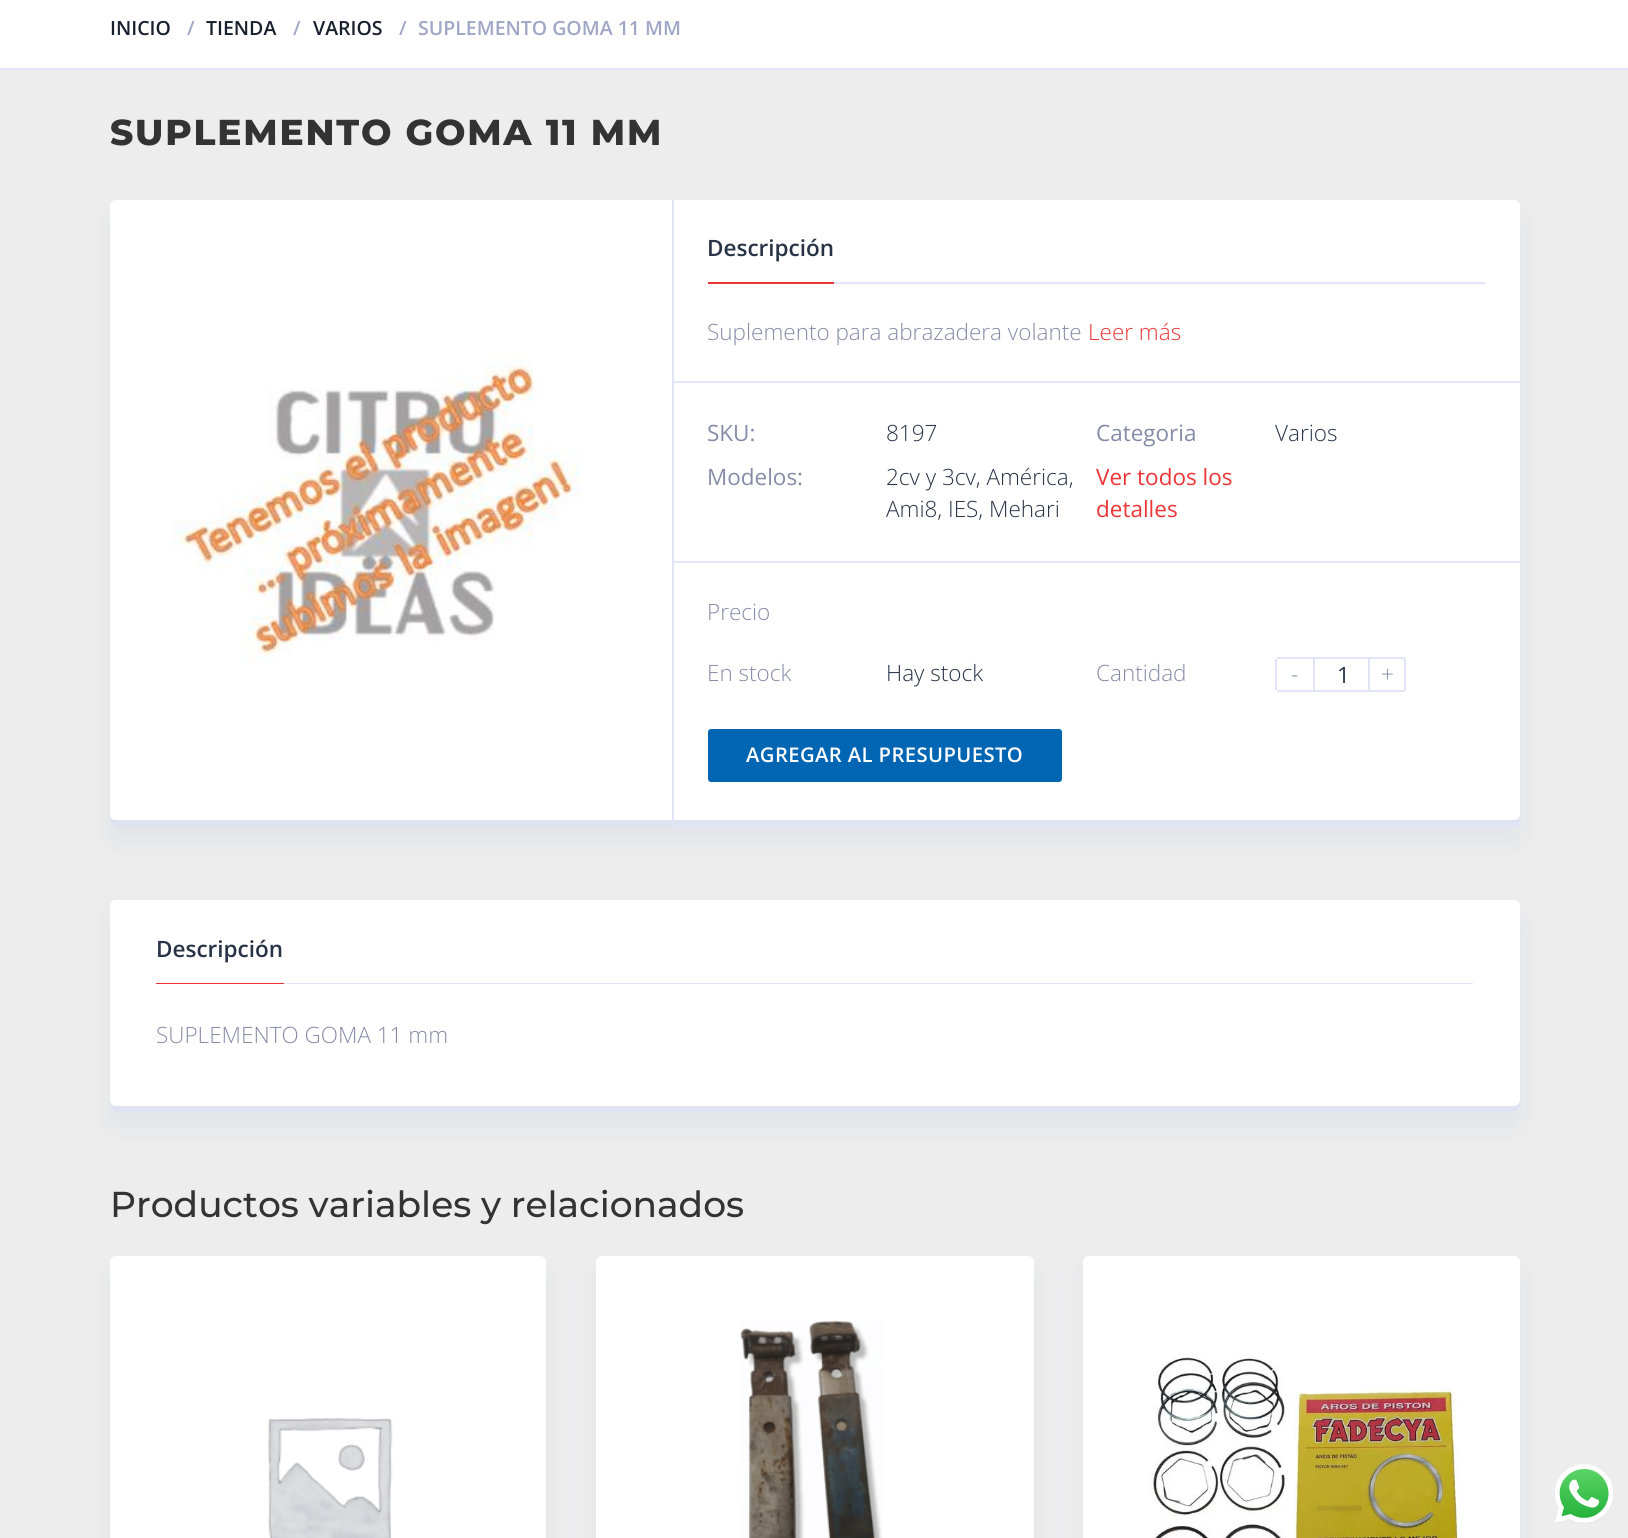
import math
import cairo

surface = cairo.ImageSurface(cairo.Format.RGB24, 1628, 1538)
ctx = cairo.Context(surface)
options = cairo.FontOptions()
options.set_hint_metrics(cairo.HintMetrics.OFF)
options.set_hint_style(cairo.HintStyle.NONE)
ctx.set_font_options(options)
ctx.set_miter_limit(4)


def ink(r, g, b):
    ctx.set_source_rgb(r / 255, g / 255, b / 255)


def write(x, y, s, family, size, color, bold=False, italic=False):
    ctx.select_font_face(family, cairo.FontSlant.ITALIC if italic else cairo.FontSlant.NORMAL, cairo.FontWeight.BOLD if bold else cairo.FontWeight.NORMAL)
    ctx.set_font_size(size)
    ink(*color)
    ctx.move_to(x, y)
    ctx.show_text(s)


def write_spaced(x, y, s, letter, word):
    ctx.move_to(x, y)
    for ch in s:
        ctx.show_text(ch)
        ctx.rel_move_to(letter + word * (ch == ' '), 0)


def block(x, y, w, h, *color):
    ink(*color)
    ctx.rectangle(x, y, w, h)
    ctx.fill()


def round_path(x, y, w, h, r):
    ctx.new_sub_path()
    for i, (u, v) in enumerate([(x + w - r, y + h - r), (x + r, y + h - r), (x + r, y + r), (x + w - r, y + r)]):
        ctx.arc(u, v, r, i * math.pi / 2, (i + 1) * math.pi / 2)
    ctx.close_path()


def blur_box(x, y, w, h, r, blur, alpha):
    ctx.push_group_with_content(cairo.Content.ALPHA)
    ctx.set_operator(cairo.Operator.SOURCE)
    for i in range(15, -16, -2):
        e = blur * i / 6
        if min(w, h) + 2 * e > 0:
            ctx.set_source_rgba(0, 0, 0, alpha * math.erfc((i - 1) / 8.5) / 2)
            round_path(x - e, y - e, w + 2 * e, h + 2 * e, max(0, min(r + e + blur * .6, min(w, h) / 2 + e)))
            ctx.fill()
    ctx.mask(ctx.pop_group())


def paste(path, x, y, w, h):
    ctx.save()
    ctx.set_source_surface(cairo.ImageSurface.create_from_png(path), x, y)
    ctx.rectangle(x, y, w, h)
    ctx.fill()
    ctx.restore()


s1 = dict(family="Open Sans SemiBold", size=19.5, color=(24, 32, 46))
s2 = dict(family="Open Sans SemiBold", size=19.5, color=(160, 166, 197))
s3 = dict(family="Open Sans SemiBold", size=22.5, color=(40, 51, 70))
s4 = dict(family="Open Sans Light", size=22.5, color=(134, 140, 167))
s5 = dict(family="Open Sans Light", size=22.5, color=(237, 53, 55))
s6 = dict(family="Open Sans", size=22.5, color=(134, 140, 167))
s7 = dict(family="Open Sans Light", size=22.5, color=(40, 51, 70))
s8 = dict(family="Open Sans", size=22.5, color=(237, 53, 55))
s9 = dict(family="Open Sans", size=22.5, color=(40, 51, 70))
s10 = dict(family="Montserrat Medium", size=36, color=(51, 51, 51))

ink(237, 237, 237)
ctx.paint()
block(0, 0, 1628, 68, 255, 255, 255)
block(0, 68, 1628, 2, 224, 228, 246)
write(110, 35, "INICIO", **s1)
write(187, 35, "/", **s2)
write(206, 35, "TIENDA", **s1)
write(293, 35, "/", **s2)
write(313, 35, "VARIOS", **s1)
write(399, 35, "/", **s2)
write(418, 35, "SUPLEMENTO GOMA 11 MM", **s2)
ctx.select_font_face("Montserrat ExtraBold")
ctx.set_font_size(36)
ink(51, 51, 51)
write_spaced(110, 145, "SUPLEMENTO GOMA 11 MM", 1.8, 0)
ink(192, 196, 215)
blur_box(110, 215, 1410, 627, 6, 15, 0.25)
ink(255, 255, 255)
round_path(110, 200, 1410, 627, 6)
ctx.fill()
ink(223, 226, 240)
ctx.new_path()
ctx.move_to(110, 814)
ctx.line_to(110, 821)
ctx.curve_to(110, 824, 113, 827, 116, 827)
ctx.line_to(1514, 827)
ctx.curve_to(1517, 827, 1520, 824, 1520, 821)
ctx.line_to(1520, 814)
ctx.curve_to(1520, 818, 1517, 820, 1514, 820)
ctx.line_to(116, 820)
ctx.curve_to(112, 820, 110, 818, 110, 814)
ctx.close_path()
ctx.fill()
block(672, 200, 2, 627, 224, 228, 246)
paste("pic1.png", 172, 353, 409, 312)
block(674, 381, 846, 2, 224, 228, 246)
block(834, 282, 651, 2, 224, 228, 246)
write(707, 256, "Descripción", **s3)
block(708, 282, 126, 2, 237, 53, 55)
write(707, 340, "Suplemento para abrazadera volante", **s4)
write(1088, 340, "Leer más", **s5)
block(674, 561, 846, 2, 224, 228, 246)
write(707, 441, "SKU:", **s6)
write(886, 441, "8197", **s7)
write(1096, 441, "Categoria", **s6)
write(1275, 441, "Varios", **s7)
write(707, 485, "Modelos:", **s6)
write(886, 485, "2cv y 3cv, América,", **s7)
write(886, 517, "Ami8, IES, Mehari", **s7)
write(1096, 485, "Ver todos los", **s8)
write(1096, 517, "detalles", **s8)
block(674, 825, 846, 2, 224, 228, 246)
write(707, 620, "Precio", **s4)
write(707, 681, "En stock", **s4)
write(886, 681, "Hay stock", **s7)
write(1096, 681, "Cantidad", **s4)
block(1275, 659, 2, 31, 224, 228, 246)
write(1291, 682, "-", **s4)
block(1277, 657, 91, 2, 224, 228, 246)
block(1277, 690, 91, 2, 224, 228, 246)
block(1313, 657, 2, 35, 224, 228, 246)
write(1337, 683, "1", **s9)
ctx.new_path()
ctx.move_to(1369, 658)
ctx.line_to(1403, 658)
ctx.curve_to(1404, 658, 1405, 659, 1405, 660)
ctx.line_to(1405, 689)
ctx.curve_to(1405, 690, 1404, 691, 1403, 691)
ctx.line_to(1369, 691)
ctx.close_path()
ink(224, 228, 246)
ctx.stroke()
write(1381, 682, "+", **s4)
ink(0, 102, 180)
round_path(709, 730, 352, 51, 2)
ctx.fill_preserve()
ctx.stroke()
ctx.select_font_face("Open Sans SemiBold")
ctx.set_font_size(20.25)
ink(255, 255, 255)
write_spaced(746, 762, "AGREGAR AL PRESUPUESTO", 0.4, 0)
ink(192, 196, 215)
blur_box(110, 915, 1410, 212, 6, 15, 0.25)
ink(255, 255, 255)
round_path(110, 900, 1410, 212, 6)
ctx.fill()
ink(223, 226, 240)
ctx.new_path()
ctx.move_to(110, 1100)
ctx.line_to(110, 1106)
ctx.curve_to(110, 1109, 113, 1112, 116, 1112)
ctx.line_to(1514, 1112)
ctx.curve_to(1517, 1112, 1520, 1109, 1520, 1106)
ctx.line_to(1520, 1100)
ctx.curve_to(1520, 1103, 1517, 1106, 1514, 1106)
ctx.line_to(116, 1106)
ctx.curve_to(112, 1106, 110, 1103, 110, 1100)
ctx.close_path()
ctx.fill()
write(156, 957, "Descripción", **s3)
block(156, 983, 128, 1, 237, 53, 55)
block(284, 983, 1189, 1, 224, 228, 246)
write(156, 1043, "SUPLEMENTO GOMA 11 mm", **s4)
write(110, 1217, "Productos variables y relacionados", **s10)
ink(192, 196, 215)
blur_box(110, 1271, 436, 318, 6, 15, 0.25)
ink(255, 255, 255)
round_path(110, 1256, 436, 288, 6)
ctx.fill()
paste("pic2.png", 267, 1418, 126, 120)
ink(192, 196, 215)
blur_box(596, 1271, 438, 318, 6, 15, 0.25)
ink(255, 255, 255)
round_path(596, 1256, 438, 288, 6)
ctx.fill()
paste("pic3.png", 740, 1320, 143, 218)
ink(192, 196, 215)
blur_box(1083, 1271, 437, 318, 6, 15, 0.25)
ink(255, 255, 255)
round_path(1083, 1256, 437, 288, 6)
ctx.fill()
paste("pic4.png", 1149, 1354, 313, 184)
paste("pic5.png", 1554, 1464, 59, 60)
surface.write_to_png("screenshot.png")
